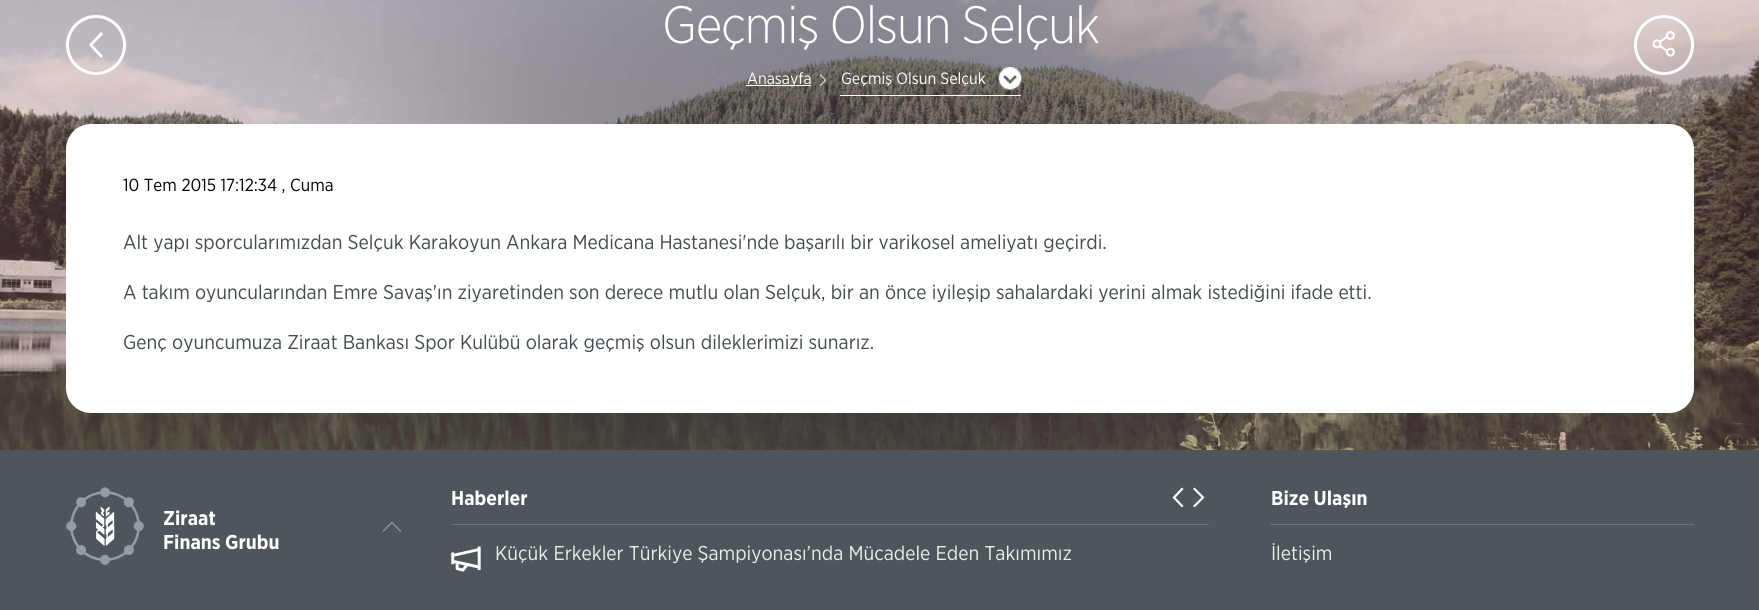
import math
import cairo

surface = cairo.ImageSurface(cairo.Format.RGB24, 1759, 610)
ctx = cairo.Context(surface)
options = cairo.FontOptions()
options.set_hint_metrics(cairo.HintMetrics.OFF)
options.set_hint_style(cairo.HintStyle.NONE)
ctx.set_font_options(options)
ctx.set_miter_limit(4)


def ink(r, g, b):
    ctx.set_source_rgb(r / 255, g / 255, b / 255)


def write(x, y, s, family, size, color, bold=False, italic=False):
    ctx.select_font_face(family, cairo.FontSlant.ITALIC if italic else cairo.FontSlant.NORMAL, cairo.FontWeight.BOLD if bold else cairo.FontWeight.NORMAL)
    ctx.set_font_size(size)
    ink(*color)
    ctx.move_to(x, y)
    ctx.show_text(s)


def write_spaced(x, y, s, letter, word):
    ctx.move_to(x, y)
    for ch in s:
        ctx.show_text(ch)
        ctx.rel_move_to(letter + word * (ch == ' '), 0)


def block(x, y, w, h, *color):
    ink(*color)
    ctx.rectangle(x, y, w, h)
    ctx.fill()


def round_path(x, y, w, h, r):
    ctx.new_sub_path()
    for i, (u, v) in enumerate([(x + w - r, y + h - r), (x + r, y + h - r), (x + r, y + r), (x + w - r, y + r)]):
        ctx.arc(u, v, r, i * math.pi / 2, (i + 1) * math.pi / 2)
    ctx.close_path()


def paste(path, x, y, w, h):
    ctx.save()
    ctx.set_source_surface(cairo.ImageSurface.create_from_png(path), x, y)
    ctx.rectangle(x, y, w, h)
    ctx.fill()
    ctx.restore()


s1 = dict(family="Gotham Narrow", size=16.25, color=(255, 255, 255))
s2 = dict(family="Gotham Narrow", size=17.5, color=(0, 0, 0))
s3 = dict(family="Gotham Narrow", size=20, color=(66, 75, 80))
s4 = dict(family="Gotham Narrow", size=20, color=(255, 255, 255), bold=True)
s5 = dict(family="Gotham Narrow", size=20, color=(236, 236, 236))

ink(255, 255, 255)
ctx.paint()
paste("pic1.png", 0, 0, 1759, 450)
ctx.arc(96, 45, 28.5, 0, 2 * math.pi)
ink(255, 255, 255)
ctx.set_line_width(3)
ctx.stroke()
ctx.new_path()
ctx.move_to(103, 56)
ctx.line_to(101, 58)
ctx.line_to(89, 45)
ctx.line_to(101, 32)
ctx.line_to(103, 34)
ctx.line_to(92.5, 45)
ctx.close_path()
ctx.fill()
ctx.select_font_face("Gotham Narrow Light")
ctx.set_font_size(52.5)
write_spaced(662, 43, "Geçmiş Olsun Selçuk", -1.25, 0)
ctx.new_path()
ctx.arc(1664, 45, 28.5, 0, 2 * math.pi)
ctx.stroke()
paste("pic2.png", 1652, 31, 23, 26)
paste("pic3.png", 820, 74, 7, 12)
block(746, 85, 65, 1, 255, 255, 255)
write(747, 84, "Anasayfa", **s1)
block(840, 95, 181, 1, 255, 255, 255)
write(841, 84, "Geçmiş Olsun Selçuk", **s1)
paste("pic4.png", 998, 67, 24, 23)
round_path(66, 124, 1628, 289, 25)
ctx.fill()
write(123, 191, "10 Tem 2015 17:12:34 , Cuma", **s2)
write(123, 249, "Alt yapı sporcularımızdan Selçuk Karakoyun Ankara Medicana Hastanesi'nde başarılı bir varikosel ameliyatı geçirdi.", **s3)
write(123, 299, "A takım oyuncularından Emre Savaş'ın ziyaretinden son derece mutlu olan Selçuk, bir an önce iyileşip sahalardaki yerini almak istediğini ifade etti.", **s3)
write(123, 349, "Genç oyuncumuza Ziraat Bankası Spor Kulübü olarak geçmiş olsun dileklerimizi sunarız.", **s3)
block(0, 450, 1759, 160, 76, 86, 91)
paste("pic6.png", 95, 506, 20, 40)
paste("pic5.png", 66, 487, 78, 78)
write(163, 525, "Ziraat", **s4)
paste("pic7.png", 382, 522, 20, 10)
write(163, 549, "Finans Grubu", **s4)
block(451, 524, 758, 1, 106, 115, 120)
write(451, 505, "Haberler", **s4)
ctx.new_path()
ctx.move_to(1183.5, 506)
ctx.line_to(1182, 507.5)
ctx.line_to(1172.5, 497.5)
ctx.line_to(1182, 487.5)
ctx.line_to(1183.5, 489)
ctx.line_to(1175.5, 497.5)
ctx.close_path()
ctx.move_to(1193, 489)
ctx.line_to(1194.5, 487.5)
ctx.line_to(1204.5, 497.5)
ctx.line_to(1194.5, 507.5)
ctx.line_to(1193, 506)
ctx.line_to(1201.5, 497.5)
ctx.close_path()
ctx.fill()
paste("pic8.png", 451, 546, 30, 26)
write(495, 560, "Küçük Erkekler Türkiye Şampiyonası’nda Mücadele Eden Takımımız", **s5)
block(1270, 524, 424, 1, 106, 115, 120)
write(1271, 505, "Bize Ulaşın", **s4)
write(1271, 560, "İletişim", **s5)
surface.write_to_png("screenshot.png")
